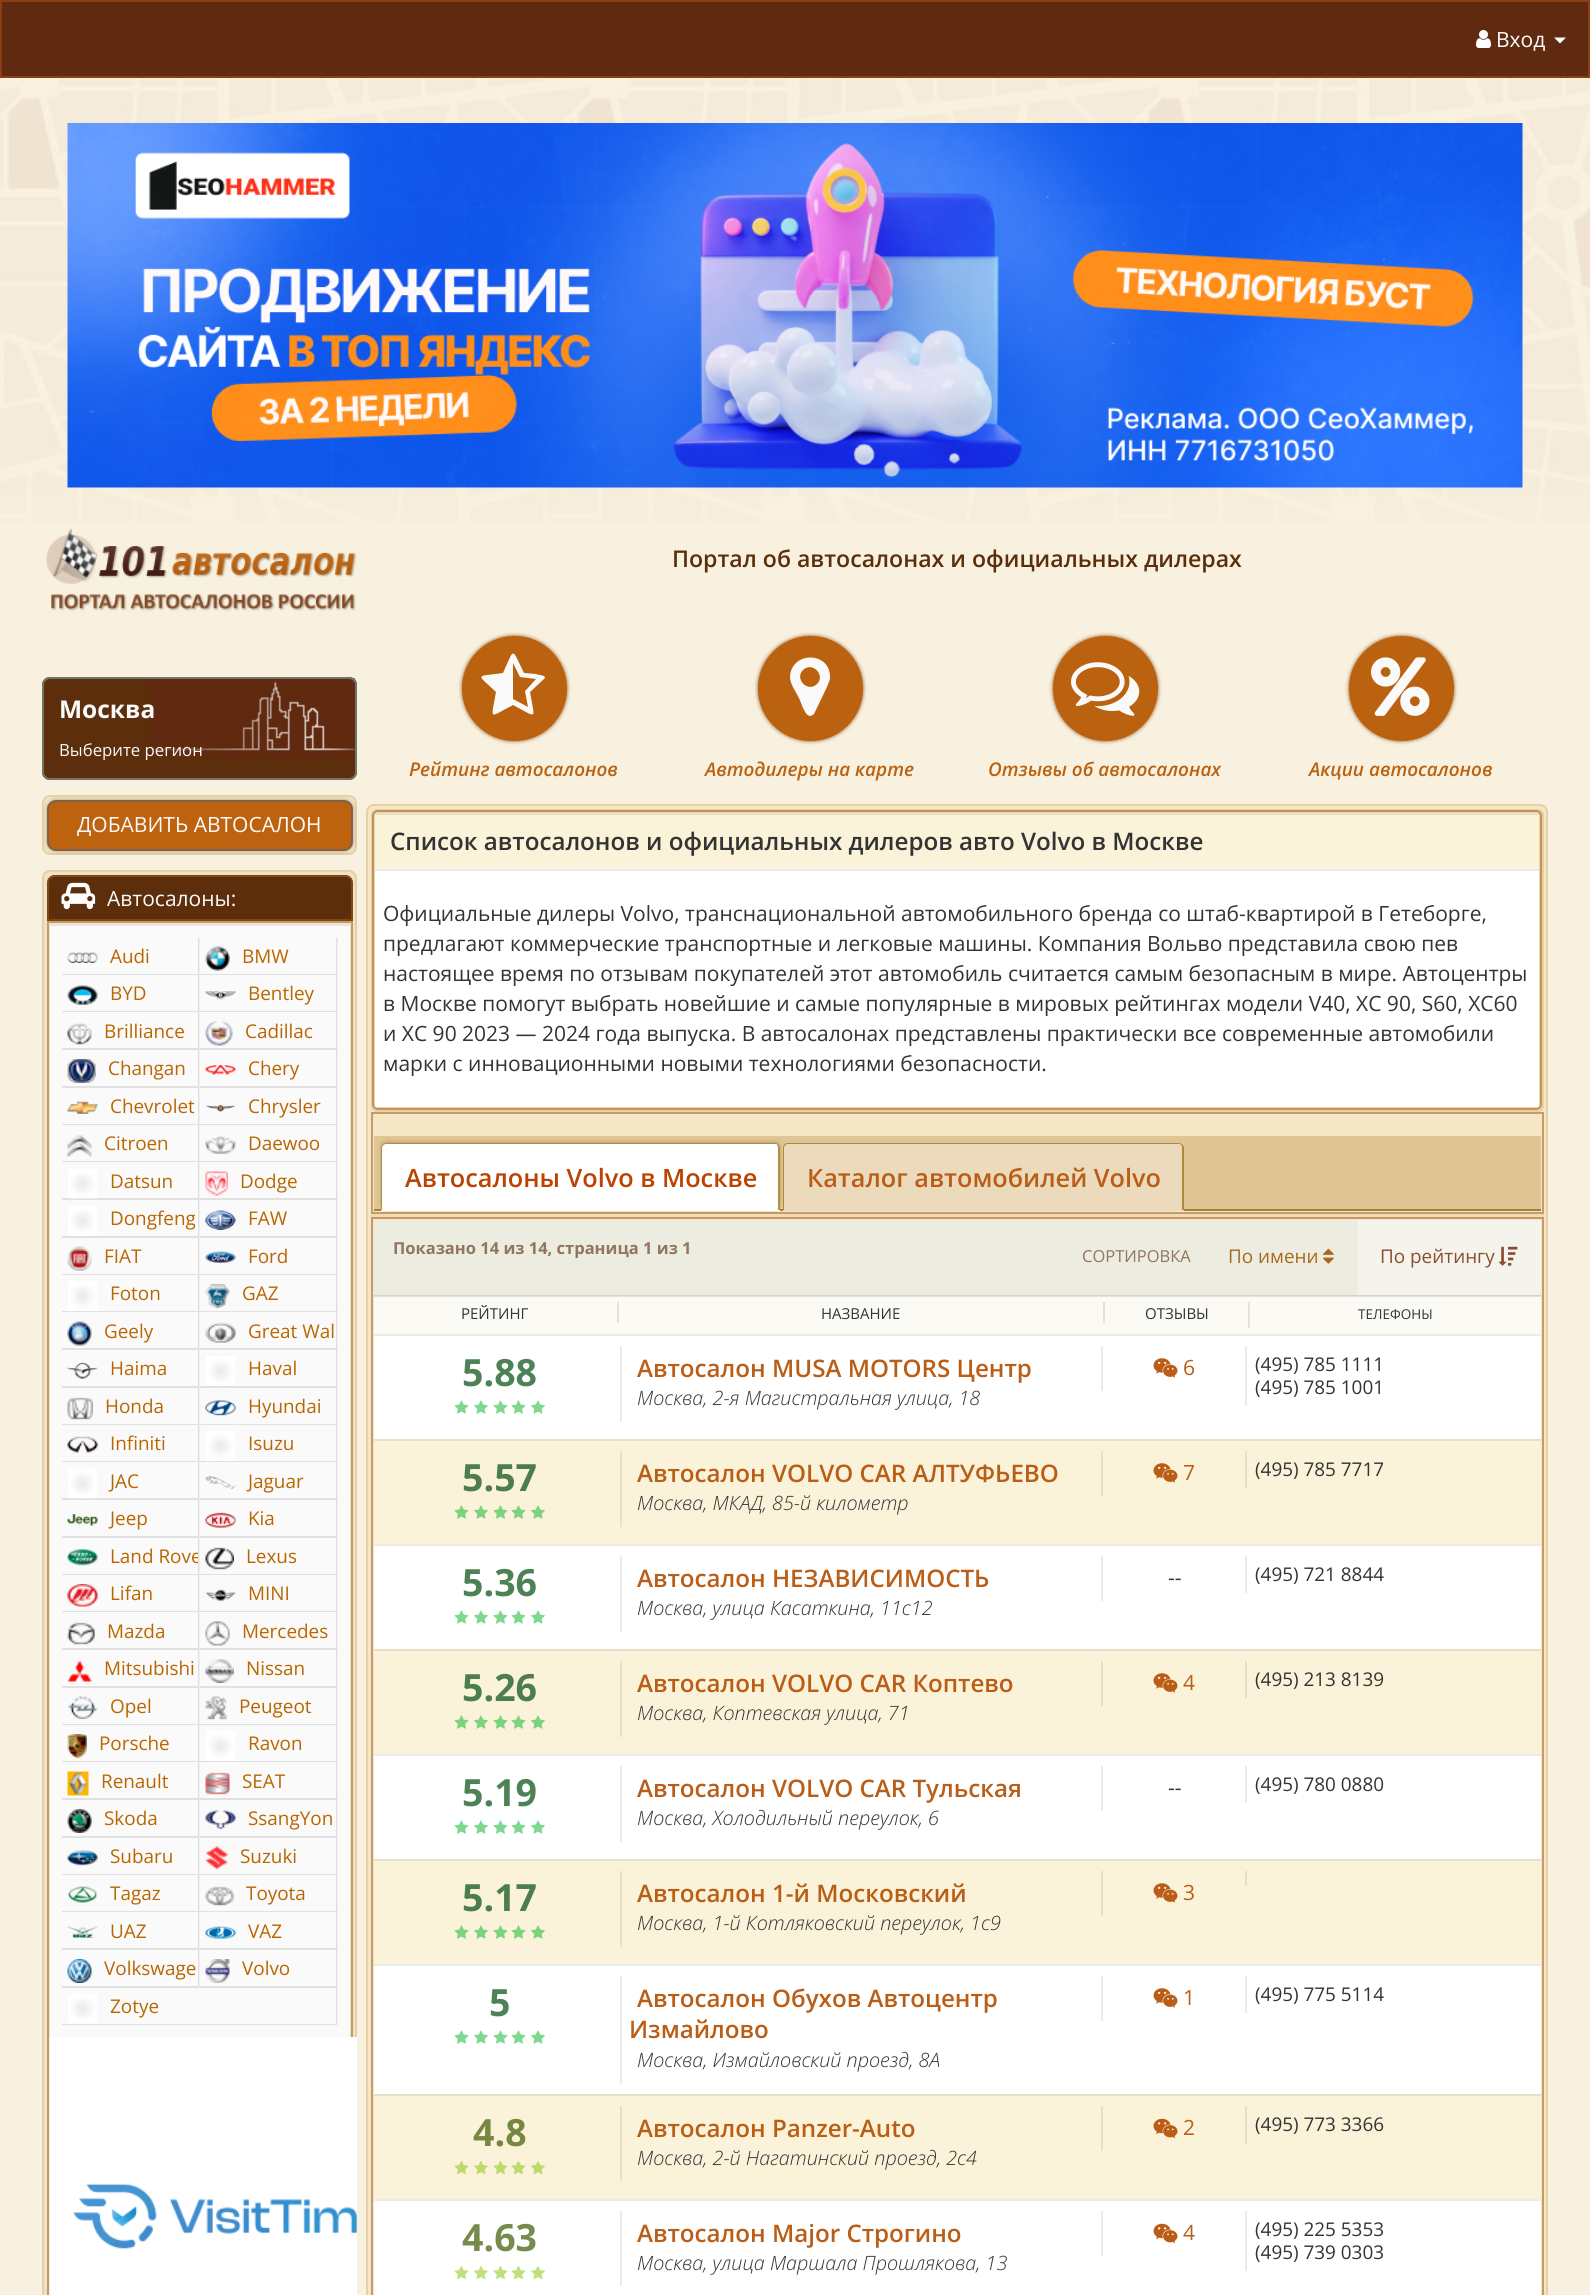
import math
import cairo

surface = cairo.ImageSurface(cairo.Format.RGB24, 1590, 2295)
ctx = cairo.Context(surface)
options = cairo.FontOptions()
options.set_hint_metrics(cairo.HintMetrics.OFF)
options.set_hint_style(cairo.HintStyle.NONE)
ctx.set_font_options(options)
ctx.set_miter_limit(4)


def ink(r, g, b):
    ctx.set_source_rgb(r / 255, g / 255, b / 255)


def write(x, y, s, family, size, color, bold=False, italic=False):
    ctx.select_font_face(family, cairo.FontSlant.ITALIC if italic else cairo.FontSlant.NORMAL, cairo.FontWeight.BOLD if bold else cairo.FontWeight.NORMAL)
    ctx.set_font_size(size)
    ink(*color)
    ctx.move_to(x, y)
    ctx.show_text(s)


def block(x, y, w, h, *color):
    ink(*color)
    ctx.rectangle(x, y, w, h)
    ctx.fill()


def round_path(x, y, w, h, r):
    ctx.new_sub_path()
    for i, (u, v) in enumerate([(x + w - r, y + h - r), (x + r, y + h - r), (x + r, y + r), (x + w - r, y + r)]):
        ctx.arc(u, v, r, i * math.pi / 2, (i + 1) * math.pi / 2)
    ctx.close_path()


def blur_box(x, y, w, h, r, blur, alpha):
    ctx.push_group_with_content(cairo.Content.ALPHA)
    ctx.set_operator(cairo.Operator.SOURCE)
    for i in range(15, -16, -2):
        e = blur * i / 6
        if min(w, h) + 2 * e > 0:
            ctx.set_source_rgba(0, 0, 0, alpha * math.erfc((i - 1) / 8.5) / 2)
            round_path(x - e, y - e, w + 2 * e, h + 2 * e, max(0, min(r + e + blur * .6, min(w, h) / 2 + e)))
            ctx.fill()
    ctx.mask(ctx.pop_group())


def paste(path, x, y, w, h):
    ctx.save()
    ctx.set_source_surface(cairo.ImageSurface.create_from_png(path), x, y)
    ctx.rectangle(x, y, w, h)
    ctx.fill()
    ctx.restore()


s1 = dict(family="Open Sans", size=21, color=(250, 250, 250))
s2 = dict(family="Open Sans", size=24.5, color=(250, 250, 250), bold=True)
s3 = dict(family="Open Sans", size=16.75, color=(250, 250, 250))
s4 = dict(family="Open Sans", size=18.9, color=(185, 102, 0))
s5 = dict(family="Open Sans SemiBold", size=23.1, color=(92, 46, 12))
s6 = dict(family="Open Sans SemiBold", size=18.9, color=(187, 98, 16), italic=True)
s7 = dict(family="Open Sans SemiBold", size=24.15, color=(51, 51, 51))
s8 = dict(family="Open Sans", size=21, color=(51, 51, 51))
s9 = dict(family="Open Sans SemiBold", size=25.25, color=(187, 66, 0))
s10 = dict(family="Open Sans SemiBold", size=25.25, color=(186, 93, 22))
s11 = dict(family="Open Sans", size=16.5, color=(143, 118, 93), bold=True)
s12 = dict(family="Open Sans", size=16.5, color=(143, 118, 93))
s13 = dict(family="Open Sans", size=18.9, color=(168, 105, 30))
s14 = dict(family="Open Sans", size=18.9, color=(139, 77, 49))
s15 = dict(family="Open Sans", size=15, color=(51, 51, 51))
s16 = dict(family="Open Sans", size=13.5, color=(51, 51, 51))
s17 = dict(family="Open Sans", size=37.5, color=(77, 130, 87), bold=True)
s18 = dict(family="Open Sans SemiBold", size=24.15, color=(186, 93, 22))
s19 = dict(family="Open Sans Light", size=19.75, color=(51, 51, 51), italic=True)
s20 = dict(family="Open Sans", size=21, color=(186, 93, 22))
s21 = dict(family="Open Sans", size=18.9, color=(51, 51, 51))
s22 = dict(family="Open Sans", size=37.5, color=(75, 126, 76), bold=True)
s23 = dict(family="Open Sans", size=37.5, color=(117, 135, 65), bold=True)
s24 = dict(family="Open Sans", size=37.5, color=(119, 139, 77), bold=True)

ink(248, 241, 223)
ctx.paint()
paste("pic1.png", 0, 78, 1590, 445)
ink(96, 42, 16)
ctx.rectangle(1, 1, 1588, 76)
ctx.fill_preserve()
ink(140, 61, 23)
ctx.stroke()
paste("pic2.png", 1476, 30, 15, 18)
write(1496, 47, "Вход", **s1)
ink(255, 255, 255)
ctx.new_path()
ctx.move_to(1554, 37.5)
ctx.line_to(1566, 37.5)
ctx.line_to(1560, 43.5)
ctx.close_path()
ctx.fill()
paste("pic3.png", 67, 123, 1456, 365)
paste("pic4.png", 46, 528, 311, 83)
ink(92, 46, 12)
round_path(42, 677, 315, 103, 8)
ctx.fill()
paste("pic5.png", 150, 678, 206, 79)
round_path(43, 678, 313, 101, 7)
ink(113, 116, 103)
ctx.stroke()
write(59, 718, "Москва", **s2)
write(59, 756, "Выберите регион", **s3)
ink(241, 227, 197)
round_path(43, 796, 313, 58, 7)
ctx.fill_preserve()
ink(230, 208, 165)
ctx.stroke()
ink(0, 0, 0)
blur_box(47, 800, 306, 51, 9, 2, 0.3)
ink(189, 98, 15)
round_path(48, 801, 304, 49, 8)
ctx.fill_preserve()
ink(129, 97, 76)
ctx.stroke()
write(77, 832, "ДОБАВИТЬ АВТОСАЛОН", **s1)
ink(241, 226, 198)
round_path(43, 871, 313, 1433, 7)
ctx.fill_preserve()
ink(230, 208, 165)
ctx.stroke()
ink(92, 46, 12)
ctx.new_path()
ctx.move_to(55, 875)
ctx.line_to(345, 875)
ctx.curve_to(349.5, 875, 353, 878.5, 353, 883)
ctx.line_to(353, 921)
ctx.line_to(47, 921)
ctx.line_to(47, 883)
ctx.curve_to(47, 878.5, 50.5, 875, 55, 875)
ctx.close_path()
ctx.fill()
ctx.new_path()
ctx.move_to(55, 876)
ctx.line_to(345, 876)
ctx.curve_to(349, 876, 352, 879, 352, 883)
ctx.line_to(352, 920)
ctx.line_to(48, 920)
ctx.line_to(48, 883)
ctx.curve_to(48, 879, 51, 876, 55, 876)
ctx.close_path()
ctx.set_source_rgba(0.631, 0.357, 0.11, 0.55)
ctx.stroke()
paste("pic6.png", 61, 882, 35, 28)
write(107, 906, "Автосалоны:", **s1)
ctx.rectangle(48, 922, 304, 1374)
ink(197, 152, 105)
ctx.stroke()
block(50, 926, 300, 1111, 250, 250, 250)
block(50, 924, 300, 2, 230, 230, 230)
ink(225, 225, 225)
ctx.new_path()
ctx.move_to(199.5, 937.5)
ctx.line_to(199.5, 975)
ctx.line_to(198, 973.5)
ctx.line_to(198, 937.5)
ctx.close_path()
ctx.fill()
ctx.set_source_rgba(0, 0, 0, 0.1)
ctx.new_path()
ctx.move_to(200, 975)
ctx.line_to(62, 975)
ctx.line_to(62, 974)
ctx.line_to(198, 974)
ctx.close_path()
ctx.fill()
paste("pic7.png", 67, 952, 31, 11)
write(110, 963, "Audi", **s4)
ink(225, 225, 225)
ctx.new_path()
ctx.move_to(337.5, 937.5)
ctx.line_to(337.5, 975)
ctx.line_to(336, 973.5)
ctx.line_to(336, 937.5)
ctx.close_path()
ctx.fill()
ctx.set_source_rgba(0, 0, 0, 0.1)
ctx.new_path()
ctx.move_to(338, 975)
ctx.line_to(200, 975)
ctx.line_to(200, 974)
ctx.line_to(336, 974)
ctx.close_path()
ctx.fill()
paste("pic8.png", 205, 946, 25, 25)
write(242, 963, "BMW", **s4)
ink(225, 225, 225)
ctx.new_path()
ctx.move_to(199.5, 975)
ctx.line_to(199.5, 1012.5)
ctx.line_to(198, 1011)
ctx.line_to(198, 975)
ctx.close_path()
ctx.fill()
ctx.set_source_rgba(0, 0, 0, 0.1)
ctx.new_path()
ctx.move_to(200, 1012)
ctx.line_to(62, 1012)
ctx.line_to(62, 1011)
ctx.line_to(198, 1011)
ctx.close_path()
ctx.fill()
paste("pic9.png", 67, 985, 31, 20)
write(110, 1000, "BYD", **s4)
ink(225, 225, 225)
ctx.new_path()
ctx.move_to(337.5, 975)
ctx.line_to(337.5, 1012.5)
ctx.line_to(336, 1011)
ctx.line_to(336, 975)
ctx.close_path()
ctx.fill()
ctx.set_source_rgba(0, 0, 0, 0.1)
ctx.new_path()
ctx.move_to(338, 1012)
ctx.line_to(200, 1012)
ctx.line_to(200, 1011)
ctx.line_to(336, 1011)
ctx.close_path()
ctx.fill()
paste("pic10.png", 205, 991, 31, 9)
write(248, 1000, "Bentley", **s4)
ink(225, 225, 225)
ctx.new_path()
ctx.move_to(199.5, 1012.5)
ctx.line_to(199.5, 1050)
ctx.line_to(198, 1048.5)
ctx.line_to(198, 1012.5)
ctx.close_path()
ctx.fill()
ctx.set_source_rgba(0, 0, 0, 0.1)
ctx.new_path()
ctx.move_to(200, 1050)
ctx.line_to(62, 1050)
ctx.line_to(62, 1048)
ctx.line_to(198, 1048)
ctx.close_path()
ctx.fill()
paste("pic11.png", 67, 1023, 25, 22)
write(104, 1038, "Brilliance", **s4)
ink(225, 225, 225)
ctx.new_path()
ctx.move_to(337.5, 1012.5)
ctx.line_to(337.5, 1050)
ctx.line_to(336, 1048.5)
ctx.line_to(336, 1012.5)
ctx.close_path()
ctx.fill()
ctx.set_source_rgba(0, 0, 0, 0.1)
ctx.new_path()
ctx.move_to(338, 1050)
ctx.line_to(200, 1050)
ctx.line_to(200, 1048)
ctx.line_to(336, 1048)
ctx.close_path()
ctx.fill()
paste("pic12.png", 205, 1021, 28, 25)
write(245, 1038, "Cadillac", **s4)
ink(225, 225, 225)
ctx.new_path()
ctx.move_to(199.5, 1050)
ctx.line_to(199.5, 1087.5)
ctx.line_to(198, 1086)
ctx.line_to(198, 1050)
ctx.close_path()
ctx.fill()
ctx.set_source_rgba(0, 0, 0, 0.1)
ctx.new_path()
ctx.move_to(200, 1088)
ctx.line_to(62, 1088)
ctx.line_to(62, 1086)
ctx.line_to(198, 1086)
ctx.close_path()
ctx.fill()
paste("pic13.png", 67, 1059, 29, 24)
write(108, 1075, "Changan", **s4)
ink(225, 225, 225)
ctx.new_path()
ctx.move_to(337.5, 1050)
ctx.line_to(337.5, 1087.5)
ctx.line_to(336, 1086)
ctx.line_to(336, 1050)
ctx.close_path()
ctx.fill()
ctx.set_source_rgba(0, 0, 0, 0.1)
ctx.new_path()
ctx.move_to(338, 1088)
ctx.line_to(200, 1088)
ctx.line_to(200, 1086)
ctx.line_to(336, 1086)
ctx.close_path()
ctx.fill()
paste("pic14.png", 205, 1065, 31, 10)
write(248, 1075, "Chery", **s4)
ink(225, 225, 225)
ctx.new_path()
ctx.move_to(199.5, 1087.5)
ctx.line_to(199.5, 1125)
ctx.line_to(198, 1123.5)
ctx.line_to(198, 1087.5)
ctx.close_path()
ctx.fill()
ctx.set_source_rgba(0, 0, 0, 0.1)
ctx.new_path()
ctx.move_to(200, 1125)
ctx.line_to(62, 1125)
ctx.line_to(62, 1124)
ctx.line_to(198, 1124)
ctx.close_path()
ctx.fill()
paste("pic15.png", 67, 1101, 31, 13)
write(110, 1113, "Chevrolet", **s4)
ink(225, 225, 225)
ctx.new_path()
ctx.move_to(337.5, 1087.5)
ctx.line_to(337.5, 1125)
ctx.line_to(336, 1123.5)
ctx.line_to(336, 1087.5)
ctx.close_path()
ctx.fill()
ctx.set_source_rgba(0, 0, 0, 0.1)
ctx.new_path()
ctx.move_to(338, 1125)
ctx.line_to(200, 1125)
ctx.line_to(200, 1124)
ctx.line_to(336, 1124)
ctx.close_path()
ctx.fill()
paste("pic16.png", 205, 1104, 31, 8)
write(248, 1113, "Chrysler", **s4)
ink(225, 225, 225)
ctx.new_path()
ctx.move_to(199.5, 1125)
ctx.line_to(199.5, 1162.5)
ctx.line_to(198, 1161)
ctx.line_to(198, 1125)
ctx.close_path()
ctx.fill()
ctx.set_source_rgba(0, 0, 0, 0.1)
ctx.new_path()
ctx.move_to(200, 1162)
ctx.line_to(62, 1162)
ctx.line_to(62, 1161)
ctx.line_to(198, 1161)
ctx.close_path()
ctx.fill()
paste("pic17.png", 67, 1135, 25, 22)
write(104, 1150, "Citroen", **s4)
ink(225, 225, 225)
ctx.new_path()
ctx.move_to(337.5, 1125)
ctx.line_to(337.5, 1162.5)
ctx.line_to(336, 1161)
ctx.line_to(336, 1125)
ctx.close_path()
ctx.fill()
ctx.set_source_rgba(0, 0, 0, 0.1)
ctx.new_path()
ctx.move_to(338, 1162)
ctx.line_to(200, 1162)
ctx.line_to(200, 1161)
ctx.line_to(336, 1161)
ctx.close_path()
ctx.fill()
paste("pic18.png", 205, 1136, 31, 18)
write(248, 1150, "Daewoo", **s4)
ink(225, 225, 225)
ctx.new_path()
ctx.move_to(199.5, 1162.5)
ctx.line_to(199.5, 1200)
ctx.line_to(198, 1198.5)
ctx.line_to(198, 1162.5)
ctx.close_path()
ctx.fill()
ctx.set_source_rgba(0, 0, 0, 0.1)
ctx.new_path()
ctx.move_to(200, 1200)
ctx.line_to(62, 1200)
ctx.line_to(62, 1198)
ctx.line_to(198, 1198)
ctx.close_path()
ctx.fill()
paste("pic19.png", 68, 1169, 29, 30)
write(110, 1188, "Datsun", **s4)
ink(225, 225, 225)
ctx.new_path()
ctx.move_to(337.5, 1162.5)
ctx.line_to(337.5, 1200)
ctx.line_to(336, 1198.5)
ctx.line_to(336, 1162.5)
ctx.close_path()
ctx.fill()
ctx.set_source_rgba(0, 0, 0, 0.1)
ctx.new_path()
ctx.move_to(338, 1200)
ctx.line_to(200, 1200)
ctx.line_to(200, 1198)
ctx.line_to(336, 1198)
ctx.close_path()
ctx.fill()
paste("pic20.png", 205, 1171, 23, 25)
write(240, 1188, "Dodge", **s4)
ink(225, 225, 225)
ctx.new_path()
ctx.move_to(199.5, 1200)
ctx.line_to(199.5, 1237.5)
ctx.line_to(198, 1236)
ctx.line_to(198, 1200)
ctx.close_path()
ctx.fill()
ctx.set_source_rgba(0, 0, 0, 0.1)
ctx.new_path()
ctx.move_to(200, 1238)
ctx.line_to(62, 1238)
ctx.line_to(62, 1236)
ctx.line_to(198, 1236)
ctx.close_path()
ctx.fill()
paste("pic21.png", 68, 1206, 29, 30)
write(110, 1225, "Dongfeng", **s4)
ink(225, 225, 225)
ctx.new_path()
ctx.move_to(337.5, 1200)
ctx.line_to(337.5, 1237.5)
ctx.line_to(336, 1236)
ctx.line_to(336, 1200)
ctx.close_path()
ctx.fill()
ctx.set_source_rgba(0, 0, 0, 0.1)
ctx.new_path()
ctx.move_to(338, 1238)
ctx.line_to(200, 1238)
ctx.line_to(200, 1236)
ctx.line_to(336, 1236)
ctx.close_path()
ctx.fill()
paste("pic22.png", 205, 1210, 31, 20)
write(248, 1225, "FAW", **s4)
ink(225, 225, 225)
ctx.new_path()
ctx.move_to(199.5, 1237.5)
ctx.line_to(199.5, 1275)
ctx.line_to(198, 1273.5)
ctx.line_to(198, 1237.5)
ctx.close_path()
ctx.fill()
ctx.set_source_rgba(0, 0, 0, 0.1)
ctx.new_path()
ctx.move_to(200, 1275)
ctx.line_to(62, 1275)
ctx.line_to(62, 1274)
ctx.line_to(198, 1274)
ctx.close_path()
ctx.fill()
paste("pic23.png", 67, 1246, 25, 25)
write(104, 1263, "FIAT", **s4)
ink(225, 225, 225)
ctx.new_path()
ctx.move_to(337.5, 1237.5)
ctx.line_to(337.5, 1275)
ctx.line_to(336, 1273.5)
ctx.line_to(336, 1237.5)
ctx.close_path()
ctx.fill()
ctx.set_source_rgba(0, 0, 0, 0.1)
ctx.new_path()
ctx.move_to(338, 1275)
ctx.line_to(200, 1275)
ctx.line_to(200, 1274)
ctx.line_to(336, 1274)
ctx.close_path()
ctx.fill()
paste("pic24.png", 205, 1251, 31, 12)
write(248, 1263, "Ford", **s4)
ink(225, 225, 225)
ctx.new_path()
ctx.move_to(199.5, 1275)
ctx.line_to(199.5, 1312.5)
ctx.line_to(198, 1311)
ctx.line_to(198, 1275)
ctx.close_path()
ctx.fill()
ctx.set_source_rgba(0, 0, 0, 0.1)
ctx.new_path()
ctx.move_to(200, 1312)
ctx.line_to(62, 1312)
ctx.line_to(62, 1311)
ctx.line_to(198, 1311)
ctx.close_path()
ctx.fill()
paste("pic21.png", 68, 1281, 29, 30)
write(110, 1300, "Foton", **s4)
ink(225, 225, 225)
ctx.new_path()
ctx.move_to(337.5, 1275)
ctx.line_to(337.5, 1312.5)
ctx.line_to(336, 1311)
ctx.line_to(336, 1275)
ctx.close_path()
ctx.fill()
ctx.set_source_rgba(0, 0, 0, 0.1)
ctx.new_path()
ctx.move_to(338, 1312)
ctx.line_to(200, 1312)
ctx.line_to(200, 1311)
ctx.line_to(336, 1311)
ctx.close_path()
ctx.fill()
paste("pic25.png", 205, 1284, 25, 24)
write(242, 1300, "GAZ", **s4)
ink(225, 225, 225)
ctx.new_path()
ctx.move_to(199.5, 1312.5)
ctx.line_to(199.5, 1350)
ctx.line_to(198, 1348.5)
ctx.line_to(198, 1312.5)
ctx.close_path()
ctx.fill()
ctx.set_source_rgba(0, 0, 0, 0.1)
ctx.new_path()
ctx.move_to(200, 1350)
ctx.line_to(62, 1350)
ctx.line_to(62, 1348)
ctx.line_to(198, 1348)
ctx.close_path()
ctx.fill()
paste("pic26.png", 67, 1321, 25, 25)
write(104, 1338, "Geely", **s4)
ink(225, 225, 225)
ctx.new_path()
ctx.move_to(337.5, 1312.5)
ctx.line_to(337.5, 1350)
ctx.line_to(336, 1348.5)
ctx.line_to(336, 1312.5)
ctx.close_path()
ctx.fill()
ctx.set_source_rgba(0, 0, 0, 0.1)
ctx.new_path()
ctx.move_to(338, 1350)
ctx.line_to(200, 1350)
ctx.line_to(200, 1348)
ctx.line_to(336, 1348)
ctx.close_path()
ctx.fill()
paste("pic27.png", 205, 1322, 31, 21)
write(248, 1338, "Great Wal", **s4)
ink(225, 225, 225)
ctx.new_path()
ctx.move_to(199.5, 1350)
ctx.line_to(199.5, 1387.5)
ctx.line_to(198, 1386)
ctx.line_to(198, 1350)
ctx.close_path()
ctx.fill()
ctx.set_source_rgba(0, 0, 0, 0.1)
ctx.new_path()
ctx.move_to(200, 1388)
ctx.line_to(62, 1388)
ctx.line_to(62, 1386)
ctx.line_to(198, 1386)
ctx.close_path()
ctx.fill()
paste("pic28.png", 67, 1362, 31, 17)
write(110, 1375, "Haima", **s4)
ink(225, 225, 225)
ctx.new_path()
ctx.move_to(337.5, 1350)
ctx.line_to(337.5, 1387.5)
ctx.line_to(336, 1386)
ctx.line_to(336, 1350)
ctx.close_path()
ctx.fill()
ctx.set_source_rgba(0, 0, 0, 0.1)
ctx.new_path()
ctx.move_to(338, 1388)
ctx.line_to(200, 1388)
ctx.line_to(200, 1386)
ctx.line_to(336, 1386)
ctx.close_path()
ctx.fill()
paste("pic21.png", 206, 1356, 29, 30)
write(248, 1375, "Haval", **s4)
ink(225, 225, 225)
ctx.new_path()
ctx.move_to(199.5, 1387.5)
ctx.line_to(199.5, 1425)
ctx.line_to(198, 1423.5)
ctx.line_to(198, 1387.5)
ctx.close_path()
ctx.fill()
ctx.set_source_rgba(0, 0, 0, 0.1)
ctx.new_path()
ctx.move_to(200, 1425)
ctx.line_to(62, 1425)
ctx.line_to(62, 1424)
ctx.line_to(198, 1424)
ctx.close_path()
ctx.fill()
paste("pic29.png", 67, 1397, 26, 23)
write(105, 1413, "Honda", **s4)
ink(225, 225, 225)
ctx.new_path()
ctx.move_to(337.5, 1387.5)
ctx.line_to(337.5, 1425)
ctx.line_to(336, 1423.5)
ctx.line_to(336, 1387.5)
ctx.close_path()
ctx.fill()
ctx.set_source_rgba(0, 0, 0, 0.1)
ctx.new_path()
ctx.move_to(338, 1425)
ctx.line_to(200, 1425)
ctx.line_to(200, 1424)
ctx.line_to(336, 1424)
ctx.close_path()
ctx.fill()
paste("pic30.png", 205, 1400, 31, 16)
write(248, 1413, "Hyundai", **s4)
ink(225, 225, 225)
ctx.new_path()
ctx.move_to(199.5, 1425)
ctx.line_to(199.5, 1462.5)
ctx.line_to(198, 1461)
ctx.line_to(198, 1425)
ctx.close_path()
ctx.fill()
ctx.set_source_rgba(0, 0, 0, 0.1)
ctx.new_path()
ctx.move_to(200, 1462)
ctx.line_to(62, 1462)
ctx.line_to(62, 1461)
ctx.line_to(198, 1461)
ctx.close_path()
ctx.fill()
paste("pic31.png", 67, 1436, 31, 17)
write(110, 1450, "Infiniti", **s4)
ink(225, 225, 225)
ctx.new_path()
ctx.move_to(337.5, 1425)
ctx.line_to(337.5, 1462.5)
ctx.line_to(336, 1461)
ctx.line_to(336, 1425)
ctx.close_path()
ctx.fill()
ctx.set_source_rgba(0, 0, 0, 0.1)
ctx.new_path()
ctx.move_to(338, 1462)
ctx.line_to(200, 1462)
ctx.line_to(200, 1461)
ctx.line_to(336, 1461)
ctx.close_path()
ctx.fill()
paste("pic21.png", 206, 1431, 29, 30)
write(248, 1450, "Isuzu", **s4)
ink(225, 225, 225)
ctx.new_path()
ctx.move_to(199.5, 1462.5)
ctx.line_to(199.5, 1500)
ctx.line_to(198, 1498.5)
ctx.line_to(198, 1462.5)
ctx.close_path()
ctx.fill()
ctx.set_source_rgba(0, 0, 0, 0.1)
ctx.new_path()
ctx.move_to(200, 1500)
ctx.line_to(62, 1500)
ctx.line_to(62, 1498)
ctx.line_to(198, 1498)
ctx.close_path()
ctx.fill()
paste("pic19.png", 68, 1469, 29, 30)
write(110, 1488, "JAC", **s4)
ink(225, 225, 225)
ctx.new_path()
ctx.move_to(337.5, 1462.5)
ctx.line_to(337.5, 1500)
ctx.line_to(336, 1498.5)
ctx.line_to(336, 1462.5)
ctx.close_path()
ctx.fill()
ctx.set_source_rgba(0, 0, 0, 0.1)
ctx.new_path()
ctx.move_to(338, 1500)
ctx.line_to(200, 1500)
ctx.line_to(200, 1498)
ctx.line_to(336, 1498)
ctx.close_path()
ctx.fill()
paste("pic32.png", 205, 1476, 31, 13)
write(248, 1488, "Jaguar", **s4)
ink(225, 225, 225)
ctx.new_path()
ctx.move_to(199.5, 1500)
ctx.line_to(199.5, 1537.5)
ctx.line_to(198, 1536)
ctx.line_to(198, 1500)
ctx.close_path()
ctx.fill()
ctx.set_source_rgba(0, 0, 0, 0.1)
ctx.new_path()
ctx.move_to(200, 1538)
ctx.line_to(62, 1538)
ctx.line_to(62, 1536)
ctx.line_to(198, 1536)
ctx.close_path()
ctx.fill()
paste("pic33.png", 67, 1514, 31, 12)
write(110, 1525, "Jeep", **s4)
ink(225, 225, 225)
ctx.new_path()
ctx.move_to(337.5, 1500)
ctx.line_to(337.5, 1537.5)
ctx.line_to(336, 1536)
ctx.line_to(336, 1500)
ctx.close_path()
ctx.fill()
ctx.set_source_rgba(0, 0, 0, 0.1)
ctx.new_path()
ctx.move_to(338, 1538)
ctx.line_to(200, 1538)
ctx.line_to(200, 1536)
ctx.line_to(336, 1536)
ctx.close_path()
ctx.fill()
paste("pic34.png", 205, 1512, 31, 16)
write(248, 1525, "Kia", **s4)
ink(225, 225, 225)
ctx.new_path()
ctx.move_to(199.5, 1537.5)
ctx.line_to(199.5, 1575)
ctx.line_to(198, 1573.5)
ctx.line_to(198, 1537.5)
ctx.close_path()
ctx.fill()
ctx.set_source_rgba(0, 0, 0, 0.1)
ctx.new_path()
ctx.move_to(200, 1575)
ctx.line_to(62, 1575)
ctx.line_to(62, 1574)
ctx.line_to(198, 1574)
ctx.close_path()
ctx.fill()
paste("pic35.png", 67, 1549, 31, 17)
ctx.save()
ctx.rectangle(62, 1538, 136, 36)
ctx.clip()
write(110, 1563, "Land Rove", **s4)
ctx.restore()
ink(225, 225, 225)
ctx.new_path()
ctx.move_to(337.5, 1537.5)
ctx.line_to(337.5, 1575)
ctx.line_to(336, 1573.5)
ctx.line_to(336, 1537.5)
ctx.close_path()
ctx.fill()
ctx.set_source_rgba(0, 0, 0, 0.1)
ctx.new_path()
ctx.move_to(338, 1575)
ctx.line_to(200, 1575)
ctx.line_to(200, 1574)
ctx.line_to(336, 1574)
ctx.close_path()
ctx.fill()
paste("pic36.png", 205, 1547, 29, 23)
write(246, 1563, "Lexus", **s4)
ink(225, 225, 225)
ctx.new_path()
ctx.move_to(199.5, 1575)
ctx.line_to(199.5, 1612.5)
ctx.line_to(198, 1611)
ctx.line_to(198, 1575)
ctx.close_path()
ctx.fill()
ctx.set_source_rgba(0, 0, 0, 0.1)
ctx.new_path()
ctx.move_to(200, 1612)
ctx.line_to(62, 1612)
ctx.line_to(62, 1611)
ctx.line_to(198, 1611)
ctx.close_path()
ctx.fill()
paste("pic37.png", 67, 1584, 31, 23)
write(110, 1600, "Lifan", **s4)
ink(225, 225, 225)
ctx.new_path()
ctx.move_to(337.5, 1575)
ctx.line_to(337.5, 1612.5)
ctx.line_to(336, 1611)
ctx.line_to(336, 1575)
ctx.close_path()
ctx.fill()
ctx.set_source_rgba(0, 0, 0, 0.1)
ctx.new_path()
ctx.move_to(338, 1612)
ctx.line_to(200, 1612)
ctx.line_to(200, 1611)
ctx.line_to(336, 1611)
ctx.close_path()
ctx.fill()
paste("pic38.png", 205, 1589, 31, 13)
write(248, 1600, "MINI", **s4)
ink(225, 225, 225)
ctx.new_path()
ctx.move_to(199.5, 1612.5)
ctx.line_to(199.5, 1650)
ctx.line_to(198, 1648.5)
ctx.line_to(198, 1612.5)
ctx.close_path()
ctx.fill()
ctx.set_source_rgba(0, 0, 0, 0.1)
ctx.new_path()
ctx.move_to(200, 1650)
ctx.line_to(62, 1650)
ctx.line_to(62, 1648)
ctx.line_to(198, 1648)
ctx.close_path()
ctx.fill()
paste("pic39.png", 67, 1622, 28, 23)
write(107, 1638, "Mazda", **s4)
ink(225, 225, 225)
ctx.new_path()
ctx.move_to(337.5, 1612.5)
ctx.line_to(337.5, 1650)
ctx.line_to(336, 1648.5)
ctx.line_to(336, 1612.5)
ctx.close_path()
ctx.fill()
ctx.set_source_rgba(0, 0, 0, 0.1)
ctx.new_path()
ctx.move_to(338, 1650)
ctx.line_to(200, 1650)
ctx.line_to(200, 1648)
ctx.line_to(336, 1648)
ctx.close_path()
ctx.fill()
paste("pic40.png", 205, 1621, 25, 25)
write(242, 1638, "Mercedes", **s4)
ink(225, 225, 225)
ctx.new_path()
ctx.move_to(199.5, 1650)
ctx.line_to(199.5, 1687.5)
ctx.line_to(198, 1686)
ctx.line_to(198, 1650)
ctx.close_path()
ctx.fill()
ctx.set_source_rgba(0, 0, 0, 0.1)
ctx.new_path()
ctx.move_to(200, 1688)
ctx.line_to(62, 1688)
ctx.line_to(62, 1686)
ctx.line_to(198, 1686)
ctx.close_path()
ctx.fill()
paste("pic41.png", 67, 1660, 25, 22)
write(104, 1675, "Mitsubishi", **s4)
ink(225, 225, 225)
ctx.new_path()
ctx.move_to(337.5, 1650)
ctx.line_to(337.5, 1687.5)
ctx.line_to(336, 1686)
ctx.line_to(336, 1650)
ctx.close_path()
ctx.fill()
ctx.set_source_rgba(0, 0, 0, 0.1)
ctx.new_path()
ctx.move_to(338, 1688)
ctx.line_to(200, 1688)
ctx.line_to(200, 1686)
ctx.line_to(336, 1686)
ctx.close_path()
ctx.fill()
paste("pic42.png", 205, 1659, 29, 24)
write(246, 1675, "Nissan", **s4)
ink(225, 225, 225)
ctx.new_path()
ctx.move_to(199.5, 1687.5)
ctx.line_to(199.5, 1725)
ctx.line_to(198, 1723.5)
ctx.line_to(198, 1687.5)
ctx.close_path()
ctx.fill()
ctx.set_source_rgba(0, 0, 0, 0.1)
ctx.new_path()
ctx.move_to(200, 1725)
ctx.line_to(62, 1725)
ctx.line_to(62, 1724)
ctx.line_to(198, 1724)
ctx.close_path()
ctx.fill()
paste("pic43.png", 67, 1696, 31, 23)
write(110, 1713, "Opel", **s4)
ink(225, 225, 225)
ctx.new_path()
ctx.move_to(337.5, 1687.5)
ctx.line_to(337.5, 1725)
ctx.line_to(336, 1723.5)
ctx.line_to(336, 1687.5)
ctx.close_path()
ctx.fill()
ctx.set_source_rgba(0, 0, 0, 0.1)
ctx.new_path()
ctx.move_to(338, 1725)
ctx.line_to(200, 1725)
ctx.line_to(200, 1724)
ctx.line_to(336, 1724)
ctx.close_path()
ctx.fill()
paste("pic44.png", 205, 1696, 22, 24)
write(239, 1713, "Peugeot", **s4)
ink(225, 225, 225)
ctx.new_path()
ctx.move_to(199.5, 1725)
ctx.line_to(199.5, 1762.5)
ctx.line_to(198, 1761)
ctx.line_to(198, 1725)
ctx.close_path()
ctx.fill()
ctx.set_source_rgba(0, 0, 0, 0.1)
ctx.new_path()
ctx.move_to(200, 1762)
ctx.line_to(62, 1762)
ctx.line_to(62, 1761)
ctx.line_to(198, 1761)
ctx.close_path()
ctx.fill()
paste("pic45.png", 67, 1734, 20, 24)
write(99, 1750, "Porsche", **s4)
ink(225, 225, 225)
ctx.new_path()
ctx.move_to(337.5, 1725)
ctx.line_to(337.5, 1762.5)
ctx.line_to(336, 1761)
ctx.line_to(336, 1725)
ctx.close_path()
ctx.fill()
ctx.set_source_rgba(0, 0, 0, 0.1)
ctx.new_path()
ctx.move_to(338, 1762)
ctx.line_to(200, 1762)
ctx.line_to(200, 1761)
ctx.line_to(336, 1761)
ctx.close_path()
ctx.fill()
paste("pic21.png", 206, 1731, 29, 30)
write(248, 1750, "Ravon", **s4)
ink(225, 225, 225)
ctx.new_path()
ctx.move_to(199.5, 1762.5)
ctx.line_to(199.5, 1800)
ctx.line_to(198, 1798.5)
ctx.line_to(198, 1762.5)
ctx.close_path()
ctx.fill()
ctx.set_source_rgba(0, 0, 0, 0.1)
ctx.new_path()
ctx.move_to(200, 1800)
ctx.line_to(62, 1800)
ctx.line_to(62, 1798)
ctx.line_to(198, 1798)
ctx.close_path()
ctx.fill()
paste("pic46.png", 67, 1771, 22, 25)
write(101, 1788, "Renault", **s4)
ink(225, 225, 225)
ctx.new_path()
ctx.move_to(337.5, 1762.5)
ctx.line_to(337.5, 1800)
ctx.line_to(336, 1798.5)
ctx.line_to(336, 1762.5)
ctx.close_path()
ctx.fill()
ctx.set_source_rgba(0, 0, 0, 0.1)
ctx.new_path()
ctx.move_to(338, 1800)
ctx.line_to(200, 1800)
ctx.line_to(200, 1798)
ctx.line_to(336, 1798)
ctx.close_path()
ctx.fill()
paste("pic47.png", 205, 1772, 25, 23)
write(242, 1788, "SEAT", **s4)
ink(225, 225, 225)
ctx.new_path()
ctx.move_to(199.5, 1800)
ctx.line_to(199.5, 1837.5)
ctx.line_to(198, 1836)
ctx.line_to(198, 1800)
ctx.close_path()
ctx.fill()
ctx.set_source_rgba(0, 0, 0, 0.1)
ctx.new_path()
ctx.move_to(200, 1838)
ctx.line_to(62, 1838)
ctx.line_to(62, 1836)
ctx.line_to(198, 1836)
ctx.close_path()
ctx.fill()
paste("pic48.png", 67, 1809, 25, 24)
write(104, 1825, "Skoda", **s4)
ink(225, 225, 225)
ctx.new_path()
ctx.move_to(337.5, 1800)
ctx.line_to(337.5, 1837.5)
ctx.line_to(336, 1836)
ctx.line_to(336, 1800)
ctx.close_path()
ctx.fill()
ctx.set_source_rgba(0, 0, 0, 0.1)
ctx.new_path()
ctx.move_to(338, 1838)
ctx.line_to(200, 1838)
ctx.line_to(200, 1836)
ctx.line_to(336, 1836)
ctx.close_path()
ctx.fill()
paste("pic49.png", 205, 1810, 31, 19)
write(248, 1825, "SsangYon", **s4)
ink(225, 225, 225)
ctx.new_path()
ctx.move_to(199.5, 1837.5)
ctx.line_to(199.5, 1875)
ctx.line_to(198, 1873.5)
ctx.line_to(198, 1837.5)
ctx.close_path()
ctx.fill()
ctx.set_source_rgba(0, 0, 0, 0.1)
ctx.new_path()
ctx.move_to(200, 1875)
ctx.line_to(62, 1875)
ctx.line_to(62, 1874)
ctx.line_to(198, 1874)
ctx.close_path()
ctx.fill()
paste("pic50.png", 67, 1850, 31, 16)
write(110, 1863, "Subaru", **s4)
ink(225, 225, 225)
ctx.new_path()
ctx.move_to(337.5, 1837.5)
ctx.line_to(337.5, 1875)
ctx.line_to(336, 1873.5)
ctx.line_to(336, 1837.5)
ctx.close_path()
ctx.fill()
ctx.set_source_rgba(0, 0, 0, 0.1)
ctx.new_path()
ctx.move_to(338, 1875)
ctx.line_to(200, 1875)
ctx.line_to(200, 1874)
ctx.line_to(336, 1874)
ctx.close_path()
ctx.fill()
paste("pic51.png", 205, 1846, 23, 24)
write(240, 1863, "Suzuki", **s4)
ink(225, 225, 225)
ctx.new_path()
ctx.move_to(199.5, 1875)
ctx.line_to(199.5, 1912.5)
ctx.line_to(198, 1911)
ctx.line_to(198, 1875)
ctx.close_path()
ctx.fill()
ctx.set_source_rgba(0, 0, 0, 0.1)
ctx.new_path()
ctx.move_to(200, 1912)
ctx.line_to(62, 1912)
ctx.line_to(62, 1911)
ctx.line_to(198, 1911)
ctx.close_path()
ctx.fill()
paste("pic52.png", 68, 1886, 29, 17)
write(110, 1900, "Tagaz", **s4)
ink(225, 225, 225)
ctx.new_path()
ctx.move_to(337.5, 1875)
ctx.line_to(337.5, 1912.5)
ctx.line_to(336, 1911)
ctx.line_to(336, 1875)
ctx.close_path()
ctx.fill()
ctx.set_source_rgba(0, 0, 0, 0.1)
ctx.new_path()
ctx.move_to(338, 1912)
ctx.line_to(200, 1912)
ctx.line_to(200, 1911)
ctx.line_to(336, 1911)
ctx.close_path()
ctx.fill()
paste("pic53.png", 205, 1886, 29, 20)
write(246, 1900, "Toyota", **s4)
ink(225, 225, 225)
ctx.new_path()
ctx.move_to(199.5, 1912.5)
ctx.line_to(199.5, 1950)
ctx.line_to(198, 1948.5)
ctx.line_to(198, 1912.5)
ctx.close_path()
ctx.fill()
ctx.set_source_rgba(0, 0, 0, 0.1)
ctx.new_path()
ctx.move_to(200, 1950)
ctx.line_to(62, 1950)
ctx.line_to(62, 1948)
ctx.line_to(198, 1948)
ctx.close_path()
ctx.fill()
paste("pic54.png", 67, 1926, 31, 12)
write(110, 1938, "UAZ", **s4)
ink(225, 225, 225)
ctx.new_path()
ctx.move_to(337.5, 1912.5)
ctx.line_to(337.5, 1950)
ctx.line_to(336, 1948.5)
ctx.line_to(336, 1912.5)
ctx.close_path()
ctx.fill()
ctx.set_source_rgba(0, 0, 0, 0.1)
ctx.new_path()
ctx.move_to(338, 1950)
ctx.line_to(200, 1950)
ctx.line_to(200, 1948)
ctx.line_to(336, 1948)
ctx.close_path()
ctx.fill()
paste("pic55.png", 205, 1926, 31, 13)
write(248, 1938, "VAZ", **s4)
ink(225, 225, 225)
ctx.new_path()
ctx.move_to(199.5, 1950)
ctx.line_to(199.5, 1987.5)
ctx.line_to(198, 1986)
ctx.line_to(198, 1950)
ctx.close_path()
ctx.fill()
ctx.set_source_rgba(0, 0, 0, 0.1)
ctx.new_path()
ctx.move_to(200, 1988)
ctx.line_to(62, 1988)
ctx.line_to(62, 1986)
ctx.line_to(198, 1986)
ctx.close_path()
ctx.fill()
paste("pic56.png", 67, 1959, 25, 24)
write(104, 1975, "Volkswage", **s4)
ink(225, 225, 225)
ctx.new_path()
ctx.move_to(337.5, 1950)
ctx.line_to(337.5, 1987.5)
ctx.line_to(336, 1986)
ctx.line_to(336, 1950)
ctx.close_path()
ctx.fill()
ctx.set_source_rgba(0, 0, 0, 0.1)
ctx.new_path()
ctx.move_to(338, 1988)
ctx.line_to(200, 1988)
ctx.line_to(200, 1986)
ctx.line_to(336, 1986)
ctx.close_path()
ctx.fill()
paste("pic57.png", 205, 1959, 25, 24)
write(242, 1975, "Volvo", **s4)
ink(225, 225, 225)
ctx.new_path()
ctx.move_to(337.5, 1987.5)
ctx.line_to(337.5, 2025)
ctx.line_to(336, 2023.5)
ctx.line_to(336, 1987.5)
ctx.close_path()
ctx.fill()
ctx.set_source_rgba(0, 0, 0, 0.1)
ctx.new_path()
ctx.move_to(338, 2025)
ctx.line_to(62, 2025)
ctx.line_to(62, 2024)
ctx.line_to(336, 2024)
ctx.close_path()
ctx.fill()
paste("pic58.png", 68, 1994, 29, 29)
write(110, 2013, "Zotye", **s4)
paste("pic59.png", 49, 2037, 308, 258)
write(672, 567, "Портал об автосалонах и официальных дилерах", **s5)
ink(140, 73, 12)
blur_box(462, 636, 105, 105, 52.5, 2, 1)
ink(187, 98, 16)
ctx.arc(514.5, 688.5, 52.5, 0, 2 * math.pi)
ctx.fill()
ink(250, 250, 250)
ctx.new_path()
ctx.move_to(527, 689)
ctx.line_to(536, 679)
ctx.line_to(520, 677)
ctx.line_to(513, 663)
ctx.line_to(513, 699)
ctx.line_to(528, 707)
ctx.line_to(525, 691)
ctx.close_path()
ctx.move_to(544, 679)
ctx.line_to(530, 692)
ctx.curve_to(535, 721, 538, 718, 513, 705)
ctx.curve_to(488, 718, 491, 721, 496, 692)
ctx.curve_to(476, 673, 475, 677, 503, 673)
ctx.curve_to(515, 647, 511, 647, 524, 673)
ctx.line_to(536, 674)
ctx.curve_to(537, 675, 548, 675, 544, 679)
ctx.close_path()
ctx.fill()
write(409, 776, "Рейтинг автосалонов", **s6)
ink(140, 73, 12)
blur_box(758, 636, 105, 105, 52.5, 2, 1)
ink(187, 98, 16)
ctx.arc(810.5, 688.5, 52.5, 0, 2 * math.pi)
ctx.fill()
ink(250, 250, 250)
ctx.new_path()
ctx.move_to(817, 684)
ctx.curve_to(826, 675, 812, 661, 803, 670)
ctx.curve_to(794, 679, 808, 693, 817, 684)
ctx.close_path()
ctx.move_to(830, 677)
ctx.curve_to(830, 681, 828, 684, 826, 689)
ctx.line_to(814, 714)
ctx.line_to(811, 716)
ctx.curve_to(806, 716, 805, 711, 803, 708)
ctx.line_to(799, 698)
ctx.curve_to(796, 692, 790, 684, 790, 677)
ctx.curve_to(791, 651, 830, 651, 830, 677)
ctx.close_path()
ctx.fill()
write(705, 776, "Автодилеры на карте", **s6)
ink(140, 73, 12)
blur_box(1053, 636, 105, 105, 52.5, 2, 1)
ink(187, 98, 16)
ctx.arc(1105.5, 688.5, 52.5, 0, 2 * math.pi)
ctx.fill()
paste("pic60.png", 1071, 662, 69, 54)
write(988, 776, "Отзывы об автосалонах", **s6)
ink(140, 73, 12)
blur_box(1349, 636, 105, 105, 52.5, 2, 1)
ink(187, 98, 16)
ctx.arc(1401.5, 688.5, 52.5, 0, 2 * math.pi)
ctx.fill()
paste("pic61.png", 1371, 657, 59, 59)
write(1309, 776, "Акции автосалонов", **s6)
ink(245, 230, 198)
round_path(367, 805, 1180, 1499, 7)
ctx.fill_preserve()
ink(230, 208, 165)
ctx.stroke()
ink(237, 216, 174)
round_path(372, 810, 1171, 301, 5)
ctx.fill_preserve()
ink(230, 208, 165)
ctx.stroke()
round_path(373, 811, 1168, 298, 5)
ctx.set_source_rgba(0.631, 0.357, 0.11, 0.55)
ctx.stroke()
block(375, 815, 1164, 54, 250, 243, 217)
block(375, 813, 1164, 2, 230, 224, 200)
write(390, 850, "Список автосалонов и официальных дилеров авто Volvo в Москве", **s7)
block(375, 871, 1164, 236, 255, 255, 255)
block(375, 869, 1164, 2, 235, 235, 235)
write(383, 921, "Официальные дилеры Volvo, транснациональной автомобильного бренда со штаб-квартирой в Гетеборге,", **s8)
write(383, 951, "предлагают коммерческие транспортные и легковые машины. Компания Вольво представила свою пев", **s8)
write(383, 981, "настоящее время по отзывам покупателей этот автомобиль считается самым безопасным в мире. Автоцентры", **s8)
write(383, 1011, "в Москве помогут выбрать новейшие и самые популярные в мировых рейтингах модели V40, XC 90, S60, XC60", **s8)
write(383, 1041, "и XC 90 2023 — 2024 года выпуска. В автосалонах представлены практически все современные автомобили", **s8)
write(383, 1071, "марки с инновационными новыми технологиями безопасности.", **s8)
ctx.rectangle(372, 1113, 1171, 100)
ink(199, 154, 105)
ctx.stroke()
block(374, 1136, 1167, 73, 224, 198, 148)
block(374, 1209, 1167, 2, 170, 129, 49)
block(371, 1214, 1173, 3, 239, 220, 181)
ink(130, 99, 38)
blur_box(381, 1142, 399, 67, 5, 2, 0.4)
ink(255, 255, 255)
ctx.new_path()
ctx.move_to(386, 1143)
ctx.line_to(775, 1143)
ctx.curve_to(778, 1143, 780, 1145, 780, 1148)
ctx.line_to(780, 1211)
ctx.line_to(381, 1211)
ctx.line_to(381, 1148)
ctx.curve_to(381, 1145, 383, 1143, 386, 1143)
ctx.close_path()
ctx.fill()
ctx.set_source_rgba(0.667, 0.506, 0.192, 0.9)
ctx.set_fill_rule(cairo.FillRule.EVEN_ODD)
ctx.new_path()
ctx.move_to(386, 1143)
ctx.line_to(776, 1143)
ctx.curve_to(778, 1143, 780, 1145, 780, 1148)
ctx.line_to(780, 1210)
ctx.line_to(381, 1210)
ctx.line_to(381, 1148)
ctx.curve_to(381, 1145, 383, 1143, 386, 1143)
ctx.close_path()
ctx.move_to(386, 1144)
ctx.line_to(776, 1144)
ctx.curve_to(777, 1144, 778, 1146, 778, 1148)
ctx.line_to(778, 1210)
ctx.line_to(382, 1210)
ctx.line_to(382, 1148)
ctx.curve_to(382, 1146, 384, 1144, 386, 1144)
ctx.close_path()
ctx.fill()
write(405, 1187, "Автосалоны Volvo в Москве", **s9)
ink(235, 219, 188)
ctx.new_path()
ctx.move_to(788, 1143)
ctx.line_to(1179, 1143)
ctx.curve_to(1182, 1143, 1184, 1145, 1184, 1148)
ctx.line_to(1184, 1211)
ctx.line_to(783, 1211)
ctx.line_to(783, 1148)
ctx.curve_to(783, 1145, 785, 1143, 788, 1143)
ctx.close_path()
ctx.fill()
ctx.set_source_rgba(0.667, 0.506, 0.192, 0.9)
ctx.new_path()
ctx.move_to(788, 1143)
ctx.line_to(1179, 1143)
ctx.curve_to(1181, 1143, 1184, 1145, 1184, 1148)
ctx.line_to(1184, 1210)
ctx.line_to(783, 1210)
ctx.line_to(783, 1148)
ctx.curve_to(783, 1145, 785, 1143, 788, 1143)
ctx.close_path()
ctx.move_to(788, 1144)
ctx.line_to(1179, 1144)
ctx.curve_to(1181, 1144, 1182, 1146, 1182, 1148)
ctx.line_to(1182, 1210)
ctx.line_to(784, 1210)
ctx.line_to(784, 1148)
ctx.curve_to(784, 1146, 786, 1144, 788, 1144)
ctx.close_path()
ctx.fill()
write(807, 1187, "Каталог автомобилей Volvo", **s10)
ctx.rectangle(372, 1218, 1171, 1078)
ink(199, 154, 105)
ctx.stroke()
block(374, 1220, 984, 75, 237, 236, 224)
block(374, 1295, 1167, 1, 213, 212, 202)
write(393, 1254, "Показано 14 из 14, страница 1 из 1", **s11)
write(1082, 1262, "СОРТИРОВКА", **s12)
write(1228, 1263, "По имени", **s13)
paste("pic62.png", 1323, 1248, 11, 16)
block(1358, 1220, 183, 75, 244, 244, 236)
write(1380, 1263, "По рейтингу", **s14)
paste("pic63.png", 1498, 1246, 20, 20)
block(374, 1297, 1167, 37, 251, 250, 244)
block(374, 1296, 1167, 1, 226, 225, 220)
write(461, 1319, "РЕЙТИНГ", **s15)
block(617, 1302, 2, 21, 226, 225, 220)
write(821, 1319, "НАЗВАНИЕ", **s15)
block(1103, 1302, 2, 21, 226, 225, 220)
write(1145, 1319, "ОТЗЫВЫ", **s15)
block(1248, 1302, 2, 26, 226, 225, 220)
write(1358, 1319, "ТЕЛЕФОНЫ", **s16)
block(374, 1336, 1167, 103, 255, 255, 255)
block(374, 1334, 1167, 2, 235, 235, 235)
write(462, 1386, "5.88", **s17)
paste("pic64.png", 454, 1400, 15, 14)
paste("pic65.png", 474, 1400, 14, 14)
paste("pic64.png", 493, 1400, 15, 14)
paste("pic64.png", 511, 1400, 15, 14)
paste("pic65.png", 531, 1400, 14, 14)
block(620, 1346, 2, 76, 235, 235, 235)
write(637, 1377, "Автосалон MUSA MOTORS Центр", **s18)
write(637, 1405, "Москва, 2-я Магистральная улица, 18", **s19)
block(1101, 1346, 2, 45, 235, 235, 235)
paste("pic66.png", 1153, 1358, 25, 20)
write(1183, 1375, "6", **s20)
block(1245, 1346, 2, 60, 235, 235, 235)
write(1255, 1371, "(495) 785 1111", **s21)
write(1255, 1394, "(495) 785 1001", **s21)
block(374, 1441, 1167, 103, 250, 243, 217)
block(374, 1439, 1167, 2, 230, 224, 200)
write(462, 1491, "5.57", **s22)
paste("pic67.png", 454, 1505, 15, 14)
paste("pic68.png", 474, 1505, 14, 14)
paste("pic67.png", 493, 1505, 15, 14)
paste("pic67.png", 511, 1505, 15, 14)
paste("pic68.png", 531, 1505, 14, 14)
block(620, 1451, 2, 76, 230, 224, 200)
write(637, 1482, "Автосалон VOLVO CAR АЛТУФЬЕВО", **s18)
write(637, 1510, "Москва, МКАД, 85-й километр", **s19)
block(1101, 1451, 2, 45, 230, 224, 200)
paste("pic69.png", 1153, 1463, 25, 20)
write(1183, 1480, "7", **s20)
block(1245, 1451, 2, 37, 230, 224, 200)
write(1255, 1476, "(495) 785 7717", **s21)
block(374, 1546, 1167, 103, 255, 255, 255)
block(374, 1544, 1167, 2, 235, 235, 235)
write(462, 1596, "5.36", **s17)
paste("pic64.png", 454, 1610, 15, 14)
paste("pic65.png", 474, 1610, 14, 14)
paste("pic64.png", 493, 1610, 15, 14)
paste("pic64.png", 511, 1610, 15, 14)
paste("pic65.png", 531, 1610, 14, 14)
block(620, 1556, 2, 76, 235, 235, 235)
write(637, 1587, "Автосалон НЕЗАВИСИМОСТЬ", **s18)
write(637, 1615, "Москва, улица Касаткина, 11с12", **s19)
block(1101, 1556, 2, 45, 235, 235, 235)
write(1168, 1585, "--", **s8)
block(1245, 1556, 2, 37, 235, 235, 235)
write(1255, 1581, "(495) 721 8844", **s21)
block(374, 1651, 1167, 103, 250, 243, 217)
block(374, 1649, 1167, 2, 230, 224, 200)
write(462, 1701, "5.26", **s22)
paste("pic67.png", 454, 1715, 15, 14)
paste("pic68.png", 474, 1715, 14, 14)
paste("pic67.png", 493, 1715, 15, 14)
paste("pic67.png", 511, 1715, 15, 14)
paste("pic68.png", 531, 1715, 14, 14)
block(620, 1661, 2, 76, 230, 224, 200)
write(637, 1692, "Автосалон VOLVO CAR Коптево", **s18)
write(637, 1720, "Москва, Коптевская улица, 71", **s19)
block(1101, 1661, 2, 45, 230, 224, 200)
paste("pic69.png", 1153, 1673, 25, 20)
write(1183, 1690, "4", **s20)
block(1245, 1661, 2, 37, 230, 224, 200)
write(1255, 1686, "(495) 213 8139", **s21)
block(374, 1756, 1167, 103, 255, 255, 255)
block(374, 1754, 1167, 2, 235, 235, 235)
write(462, 1806, "5.19", **s17)
paste("pic64.png", 454, 1820, 15, 14)
paste("pic65.png", 474, 1820, 14, 14)
paste("pic64.png", 493, 1820, 15, 14)
paste("pic64.png", 511, 1820, 15, 14)
paste("pic65.png", 531, 1820, 14, 14)
block(620, 1766, 2, 76, 235, 235, 235)
write(637, 1797, "Автосалон VOLVO CAR Тульская", **s18)
write(637, 1825, "Москва, Холодильный переулок, 6", **s19)
block(1101, 1766, 2, 45, 235, 235, 235)
write(1168, 1795, "--", **s8)
block(1245, 1766, 2, 37, 235, 235, 235)
write(1255, 1791, "(495) 780 0880", **s21)
block(374, 1861, 1167, 103, 250, 243, 217)
block(374, 1859, 1167, 2, 230, 224, 200)
block(1245, 1871, 2, 15, 230, 224, 200)
write(462, 1911, "5.17", **s22)
paste("pic67.png", 454, 1925, 15, 14)
paste("pic68.png", 474, 1925, 14, 14)
paste("pic67.png", 493, 1925, 15, 14)
paste("pic67.png", 511, 1925, 15, 14)
paste("pic68.png", 531, 1925, 14, 14)
block(620, 1871, 2, 76, 230, 224, 200)
write(637, 1902, "Автосалон 1-й Московский", **s18)
write(637, 1930, "Москва, 1-й Котляковский переулок, 1с9", **s19)
block(1101, 1871, 2, 45, 230, 224, 200)
paste("pic69.png", 1153, 1883, 25, 20)
write(1183, 1900, "3", **s20)
block(374, 1966, 1167, 128, 255, 255, 255)
block(374, 1964, 1167, 2, 235, 235, 235)
write(489, 2016, "5", **s17)
paste("pic64.png", 454, 2030, 15, 14)
paste("pic65.png", 474, 2030, 14, 14)
paste("pic64.png", 493, 2030, 15, 14)
paste("pic64.png", 511, 2030, 15, 14)
paste("pic65.png", 531, 2030, 14, 14)
block(620, 1976, 2, 108, 235, 235, 235)
write(637, 2007, "Автосалон Обухов Автоцентр", **s18)
write(629, 2038, "Измайлово", **s18)
write(637, 2067, "Москва, Измайловский проезд, 8А", **s19)
block(1101, 1976, 2, 45, 235, 235, 235)
paste("pic66.png", 1153, 1988, 25, 20)
write(1183, 2005, "1", **s20)
block(1245, 1976, 2, 37, 235, 235, 235)
write(1255, 2001, "(495) 775 5114", **s21)
block(374, 2096, 1167, 103, 250, 243, 217)
block(374, 2094, 1167, 2, 230, 224, 200)
write(473, 2146, "4.8", **s23)
paste("pic70.png", 454, 2161, 15, 14)
paste("pic71.png", 474, 2161, 14, 14)
paste("pic70.png", 493, 2161, 15, 14)
paste("pic70.png", 511, 2161, 15, 14)
paste("pic71.png", 531, 2161, 14, 14)
block(620, 2106, 2, 75, 230, 224, 200)
write(637, 2137, "Автосалон Panzer-Auto", **s18)
write(637, 2165, "Москва, 2-й Нагатинский проезд, 2с4", **s19)
block(1101, 2106, 2, 45, 230, 224, 200)
paste("pic72.png", 1153, 2118, 25, 21)
write(1183, 2135, "2", **s20)
block(1245, 2106, 2, 38, 230, 224, 200)
write(1255, 2131, "(495) 773 3366", **s21)
block(374, 2201, 1167, 94, 255, 255, 255)
block(374, 2199, 1167, 2, 235, 235, 235)
write(462, 2251, "4.63", **s24)
paste("pic73.png", 454, 2266, 15, 14)
paste("pic74.png", 474, 2266, 14, 14)
paste("pic73.png", 493, 2266, 15, 14)
paste("pic73.png", 511, 2266, 15, 14)
paste("pic74.png", 531, 2266, 14, 14)
block(620, 2211, 2, 75, 235, 235, 235)
write(637, 2242, "Автосалон Major Строгино", **s18)
write(637, 2270, "Москва, улица Маршала Прошлякова, 13", **s19)
block(1101, 2211, 2, 45, 235, 235, 235)
paste("pic75.png", 1153, 2223, 25, 21)
write(1183, 2240, "4", **s20)
block(1245, 2211, 2, 60, 235, 235, 235)
write(1255, 2236, "(495) 225 5353", **s21)
write(1255, 2259, "(495) 739 0303", **s21)
surface.write_to_png("screenshot.png")
